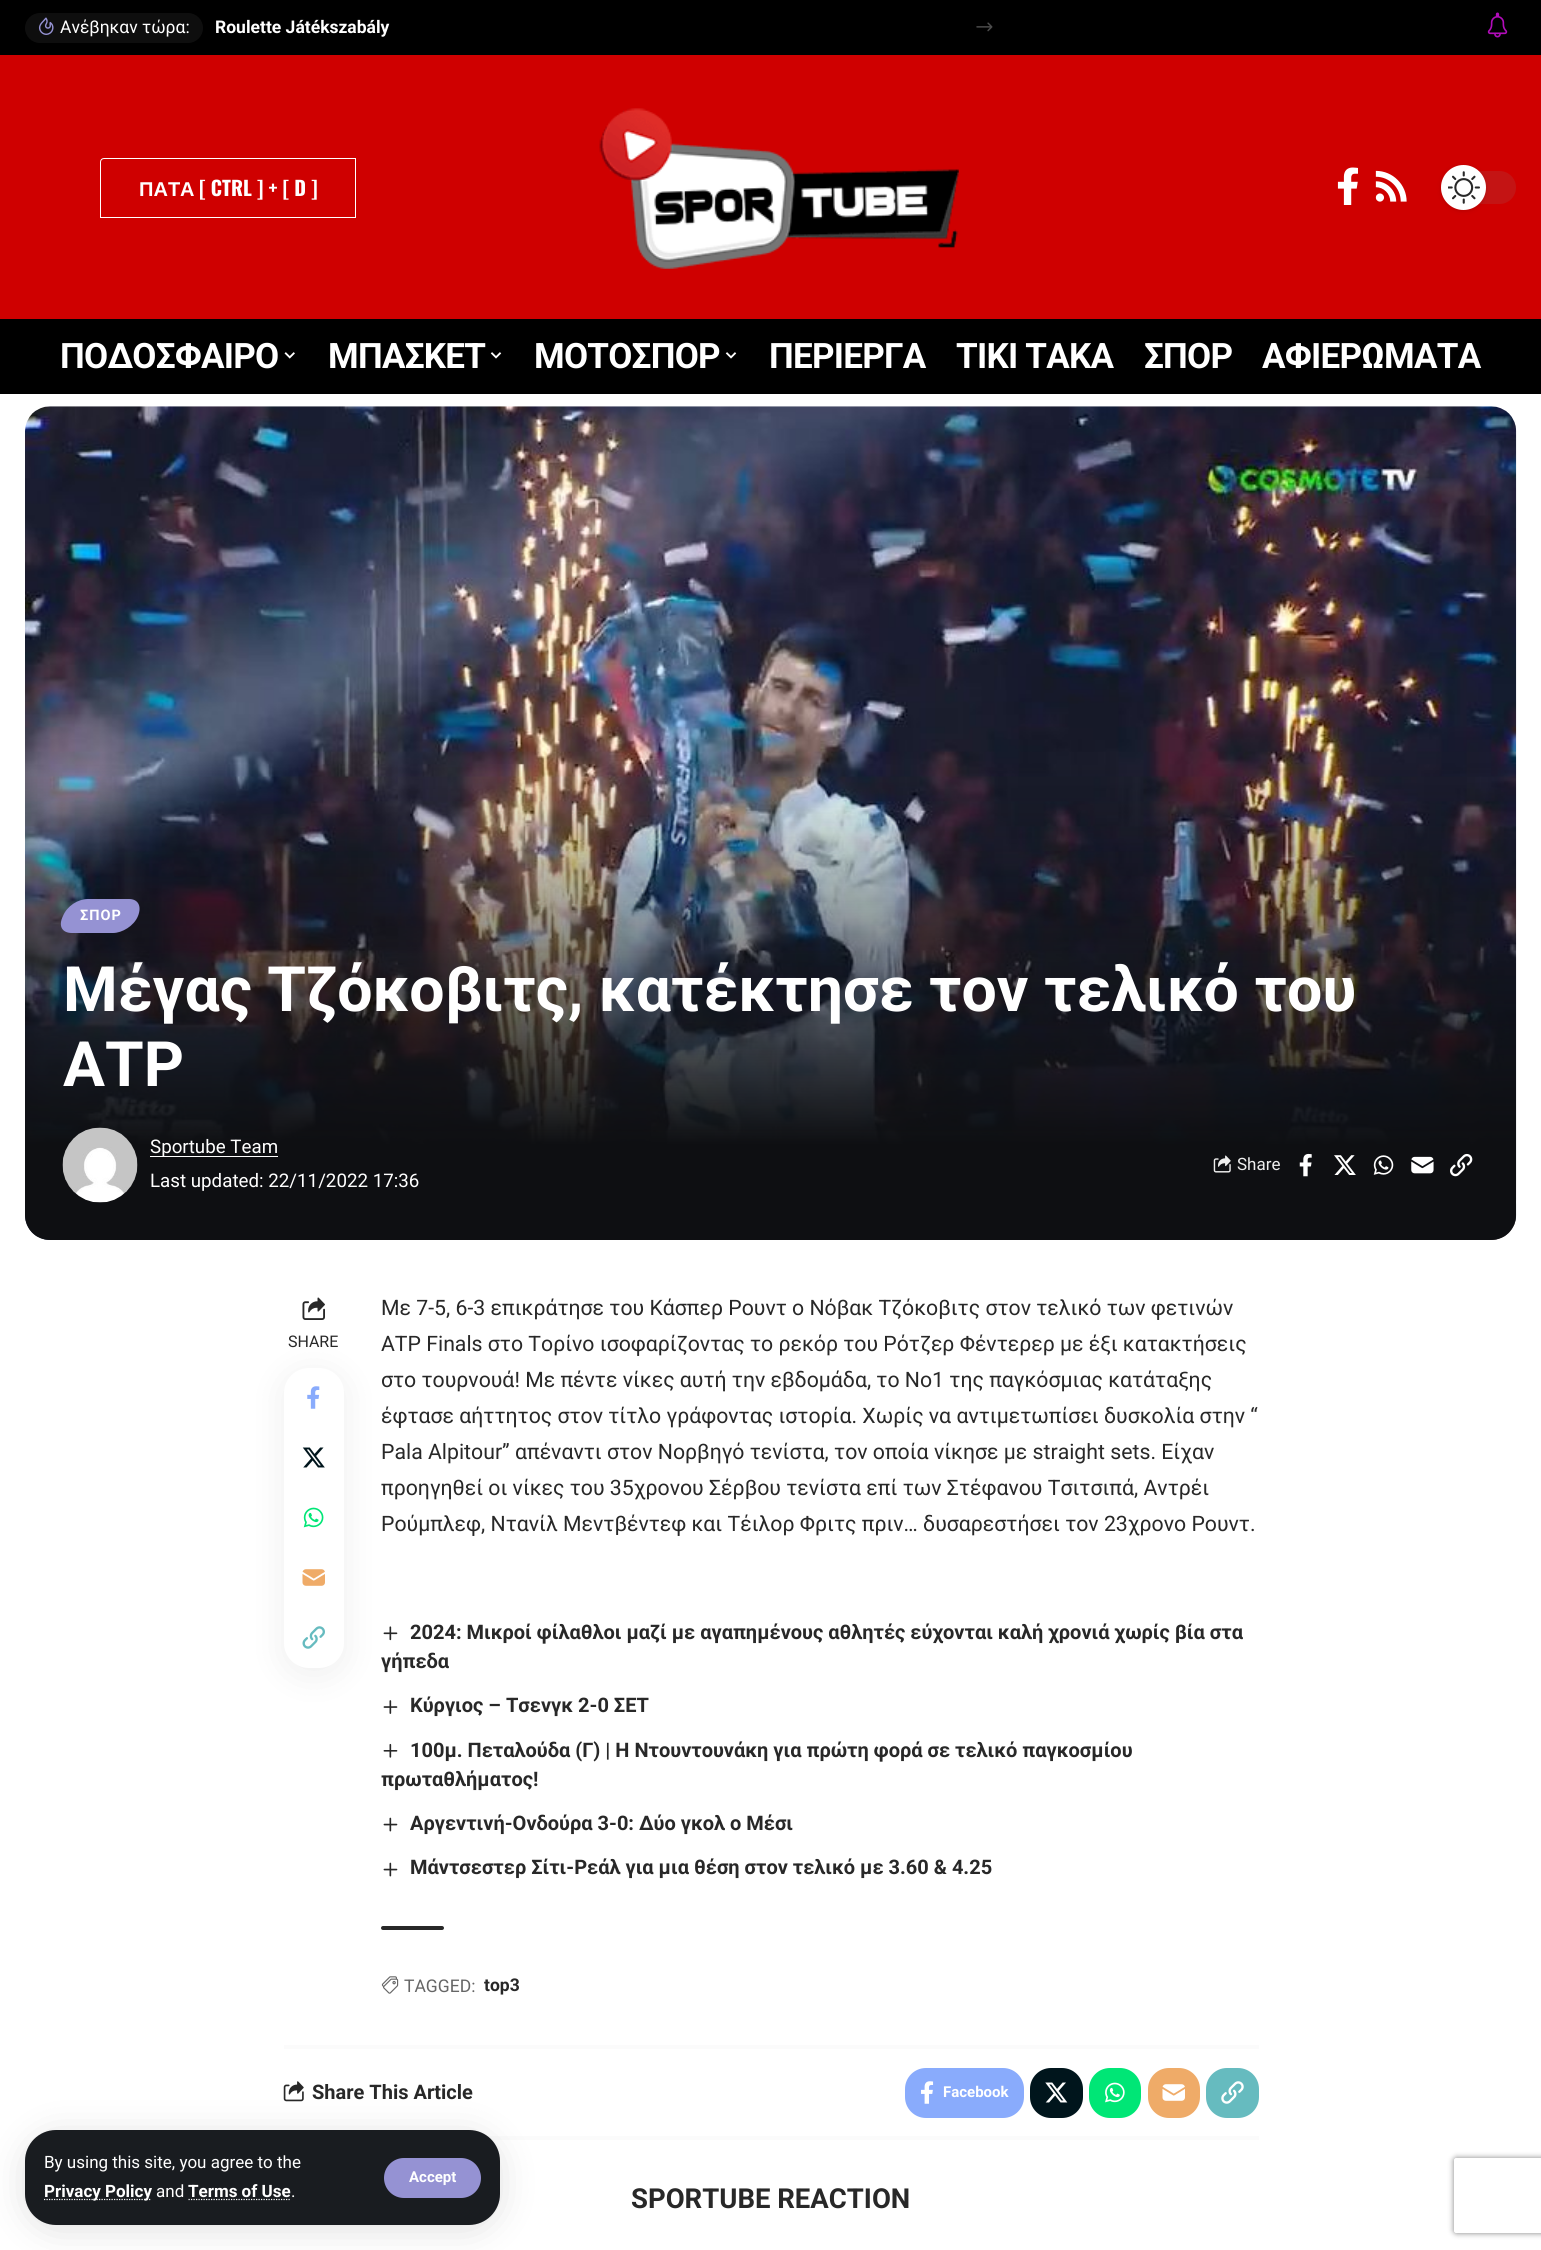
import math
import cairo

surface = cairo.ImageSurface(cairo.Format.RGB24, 1541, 2250)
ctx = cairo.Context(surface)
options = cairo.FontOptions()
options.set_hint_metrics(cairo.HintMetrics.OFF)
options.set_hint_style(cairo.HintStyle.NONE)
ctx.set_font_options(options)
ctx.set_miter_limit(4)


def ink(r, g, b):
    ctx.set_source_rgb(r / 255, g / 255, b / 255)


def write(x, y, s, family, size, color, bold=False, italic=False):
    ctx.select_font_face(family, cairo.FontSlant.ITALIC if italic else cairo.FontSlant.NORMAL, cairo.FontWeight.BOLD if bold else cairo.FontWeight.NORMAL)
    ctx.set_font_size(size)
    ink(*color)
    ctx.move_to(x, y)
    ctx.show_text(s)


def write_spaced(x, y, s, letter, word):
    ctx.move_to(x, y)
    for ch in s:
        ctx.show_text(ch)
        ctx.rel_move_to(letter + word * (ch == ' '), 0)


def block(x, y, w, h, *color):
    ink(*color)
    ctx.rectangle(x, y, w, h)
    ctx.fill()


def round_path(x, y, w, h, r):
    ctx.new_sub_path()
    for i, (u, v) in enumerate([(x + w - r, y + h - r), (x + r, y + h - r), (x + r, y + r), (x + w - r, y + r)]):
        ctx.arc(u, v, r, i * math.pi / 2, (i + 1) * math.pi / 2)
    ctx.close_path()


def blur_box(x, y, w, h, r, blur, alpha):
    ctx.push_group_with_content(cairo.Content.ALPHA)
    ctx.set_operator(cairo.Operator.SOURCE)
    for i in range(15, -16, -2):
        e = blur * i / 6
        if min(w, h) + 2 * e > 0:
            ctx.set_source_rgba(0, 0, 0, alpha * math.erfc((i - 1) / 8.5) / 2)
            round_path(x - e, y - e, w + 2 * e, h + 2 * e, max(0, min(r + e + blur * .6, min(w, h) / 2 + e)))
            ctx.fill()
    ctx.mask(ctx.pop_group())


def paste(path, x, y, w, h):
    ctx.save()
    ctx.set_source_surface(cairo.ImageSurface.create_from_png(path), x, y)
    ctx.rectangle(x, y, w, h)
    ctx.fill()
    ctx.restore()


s1 = dict(family="Roboto", size=17.5, color=(255, 255, 255))
s2 = dict(family="Roboto", size=17.5, color=(255, 255, 255), bold=True)
s3 = dict(family="Liberation Sans", size=20, color=(255, 255, 255), bold=True)
s4 = dict(family="Oswald", size=20, color=(255, 255, 255), bold=True)
s5 = dict(family="Roboto", size=17, color=(255, 255, 255))
s6 = dict(family="Roboto", size=17, color=(255, 255, 255), bold=True)
s7 = dict(family="Roboto", size=15, color=(255, 255, 255), bold=True)
s8 = dict(family="Roboto", size=62.5, color=(255, 255, 255), bold=True)
s9 = dict(family="Roboto", size=18.75, color=(255, 255, 255))
s10 = dict(family="Roboto", size=17, color=(238, 238, 238))
s11 = dict(family="Roboto", size=16, color=(40, 40, 40))
s12 = dict(family="Roboto", size=21.25, color=(40, 40, 40))
s13 = dict(family="Roboto", size=20, color=(40, 40, 40), bold=True)
s14 = dict(family="Roboto", size=17.5, color=(102, 102, 102))
s15 = dict(family="Roboto", size=17.5, color=(40, 40, 40), bold=True)
s16 = dict(family="Roboto", size=27.5, color=(40, 40, 40), bold=True)

ink(255, 255, 255)
ctx.paint()
block(0, 0, 1541, 55, 0, 0, 0)
ink(14, 14, 14)
round_path(25, 13, 178, 30, 15)
ctx.fill()
paste("pic1.png", 38, 17, 16, 18)
write(60, 33, "Ανέβηκαν τώρα:", **s1)
write(215, 33, "Roulette Játékszabály", **s2)
paste("pic2.png", 976, 22, 17, 10)
paste("pic3.png", 1487, 12, 21, 26)
block(0, 55, 1541, 264, 207, 0, 0)
ctx.new_path()
ctx.move_to(104, 158.5)
ctx.line_to(355.5, 158.5)
ctx.line_to(355.5, 217.5)
ctx.line_to(100.5, 217.5)
ctx.line_to(100.5, 162)
ctx.curve_to(100.5, 160, 102, 158.5, 104, 158.5)
ctx.close_path()
ink(255, 255, 255)
ctx.set_line_width(1)
ctx.stroke()
write(139, 196, "ΠΑΤΑ", **s3)
write(199, 196, "[ CTRL ] + [ D ]", **s4)
paste("pic4.png", 599, 108, 360, 161)
paste("pic5.png", 1337, 167, 21, 38)
paste("pic6.png", 1375, 170, 32, 32)
ink(196, 20, 20)
round_path(1441, 171, 75, 33, 16.5)
ctx.fill()
ink(0, 0, 0)
blur_box(1441, 166, 45, 45, 22.5, 2.5, 0.12)
ink(255, 255, 255)
ctx.arc(1463.5, 187.5, 22.5, 0, 2 * math.pi)
ctx.fill()
paste("pic7.png", 1448, 171, 32, 33)
block(0, 319, 1541, 75, 0, 0, 0)
ctx.select_font_face("Roboto", cairo.FontSlant.NORMAL, cairo.FontWeight.BOLD)
ctx.set_font_size(35)
ink(255, 255, 255)
write_spaced(60, 368, "ΠΟΔΟΣΦΑΙΡΟ", -0.75, 0)
paste("pic8.png", 284, 352, 11, 7)
write_spaced(328, 368, "ΜΠΑΣΚΕΤ", -0.75, 0)
paste("pic9.png", 490, 352, 12, 7)
write_spaced(534, 368, "ΜΟΤΟΣΠΟΡ", -0.75, 0)
paste("pic9.png", 725, 352, 12, 7)
write_spaced(769, 368, "ΠΕΡΙΕΡΓΑ", -0.75, 0)
write_spaced(956, 368, "TIKΙ TΑΚΑ", -0.75, 0)
write_spaced(1144, 368, "ΣΠΟΡ", -0.75, 0)
write_spaced(1262, 368, "ΑΦΙΕΡΩΜΑΤΑ", -0.75, 0)
paste("pic29.png", 283, 2081, 21, 21)
block(487, 2136, 772, 4, 251, 251, 251)
ink(0, 0, 0)
blur_box(25, 2135, 475, 95, 31, 19, 0.12)
ink(25, 28, 32)
round_path(25, 2130, 475, 95, 31)
ctx.fill()
write(44, 2168, "By using this site, you agree to the", **s5)
ctx.new_path()
ctx.move_to(44, 2199.5)
ctx.line_to(151.5, 2199.5)
ctx.set_line_width(1.2)
ctx.set_dash([1.25, 1.25])
ctx.stroke()
write(44, 2197, "Privacy Policy", **s6)
write(156, 2197, "and", **s5)
write(188, 2197, "Terms of Use", **s6)
ctx.new_path()
ctx.move_to(188.5, 2199.5)
ctx.line_to(291, 2199.5)
ctx.stroke()
write(291, 2197, ".", **s5)
ink(149, 146, 211)
round_path(384, 2158, 97, 40, 20)
ctx.fill()
write(409, 2182, "Accept", **s7)
paste("pic10.png", 25, 406, 1492, 834)
gradient = cairo.LinearGradient(771, 1240, 771, 763)
gradient.add_color_stop_rgba(0.2, 0.055, 0.059, 0.071, 1)
gradient.add_color_stop_rgba(1, 0.055, 0.059, 0.071, 0)
ctx.set_source(gradient)
ctx.new_path()
ctx.move_to(25, 763)
ctx.line_to(1516, 763)
ctx.line_to(1516, 1215)
ctx.curve_to(1516, 1229, 1505, 1240, 1491, 1240)
ctx.line_to(50, 1240)
ctx.curve_to(36, 1240, 25, 1229, 25, 1215)
ctx.close_path()
ctx.fill()
ink(149, 146, 211)
ctx.new_path()
ctx.move_to(88, 899)
ctx.line_to(129, 899)
ctx.curve_to(138, 899, 142, 906, 138, 916)
ctx.curve_to(134, 926, 122, 933, 113, 933)
ctx.line_to(72, 933)
ctx.curve_to(62, 933, 58, 926, 63, 916)
ctx.curve_to(67, 906, 78, 899, 88, 899)
ctx.close_path()
ctx.fill()
ctx.set_font_size(14.5)
ink(255, 255, 255)
write_spaced(80, 920, "ΣΠΟΡ", 1, 0)
write(63, 1011, "Μέγας Τζόκοβιτς, κατέκτησε τον τελικό του", **s8)
write(63, 1086, "ATP", **s8)
paste("pic11.png", 62, 1127, 76, 76)
block(150, 1156, 128, 1, 255, 255, 255)
write(150, 1153, "Sportube Team", **s9)
write(150, 1187, "Last updated: 22/11/2022 17:36", **s9)
paste("pic12.png", 1213, 1155, 18, 18)
write(1237, 1170, "Share", **s10)
paste("pic13.png", 1299, 1153, 13, 24)
paste("pic14.png", 1334, 1155, 22, 20)
paste("pic15.png", 1373, 1155, 21, 20)
paste("pic16.png", 1411, 1156, 23, 18)
paste("pic17.png", 1450, 1153, 23, 24)
paste("pic23.png", 302, 1297, 23, 23)
ink(0, 0, 0)
blur_box(284, 1374, 60, 300, 25, 19, 0.07)
ink(255, 255, 255)
round_path(284, 1368, 60, 300, 25)
ctx.fill()
paste("pic18.png", 307, 1386, 13, 23)
paste("pic19.png", 302, 1447, 23, 21)
paste("pic20.png", 303, 1507, 21, 21)
paste("pic21.png", 302, 1569, 23, 17)
paste("pic22.png", 302, 1626, 23, 23)
write(288, 1347, "SHARE", **s11)
write(381, 1315, "Με 7-5, 6-3 επικράτησε του Κάσπερ Ρουντ ο Νόβακ Τζόκοβιτς στον τελικό των φετινών", **s12)
write(381, 1351, "ATP Finals στο Τορίνο ισοφαρίζοντας το ρεκόρ του Ρότζερ Φέντερερ με έξι κατακτήσεις", **s12)
write(381, 1387, "στο τουρνουά! Με πέντε νίκες αυτή την εβδομάδα, το Νο1 της παγκόσμιας κατάταξης", **s12)
write(381, 1423, "έφτασε αήττητος στον τίτλο γράφοντας ιστορία. Χωρίς να αντιμετωπίσει δυσκολία στην “", **s12)
write(381, 1459, "Pala Alpitour” απέναντι στον Νορβηγό τενίστα, τον οποία νίκησε με straight sets. Eίχαν", **s12)
write(381, 1495, "προηγηθεί οι νίκες του 35χρονου Σέρβου τενίστα επί των Στέφανου Τσιτσιπά, Αντρέι", **s12)
write(381, 1531, "Ρούμπλεφ, Ντανίλ Μεντβέντεφ και Τέιλορ Φριτς πριν… δυσαρεστήσει τον 23χρονο Ρουντ.", **s12)
paste("pic24.png", 383, 1626, 15, 15)
write(410, 1639, "2024: Μικροί φίλαθλοι μαζί με αγαπημένους αθλητές εύχονται καλή χρονιά χωρίς βία στα", **s13)
write(381, 1668, "γήπεδα", **s13)
paste("pic25.png", 383, 1700, 15, 14)
write(410, 1712, "Κύργιος – Τσενγκ 2-0 ΣΕΤ", **s13)
paste("pic26.png", 383, 1743, 15, 15)
write(410, 1757, "100μ. Πεταλούδα (Γ) | Η Ντουντουνάκη για πρώτη φορά σε τελικό παγκοσμίου", **s13)
write(381, 1786, "πρωταθλήματος!", **s13)
paste("pic27.png", 383, 1817, 15, 15)
write(410, 1830, "Αργεντινή-Ονδούρα 3-0: Δύο γκολ ο Μέσι", **s13)
paste("pic27.png", 383, 1862, 15, 15)
write(410, 1874, "Μάντσεστερ Σίτι-Ρεάλ για μια θέση στον τελικό με 3.60 & 4.25", **s13)
round_path(381, 1926, 63, 4, 2)
ctx.fill()
paste("pic28.png", 381, 1976, 18, 18)
write(404, 1992, "TAGGED:", **s14)
write(484, 1991, "top3", **s15)
block(284, 2045, 975, 4, 251, 251, 251)
write(312, 2099, "Share This Article", **s13)
ink(137, 171, 252)
round_path(905, 2068, 119, 50, 21)
ctx.fill()
paste("pic30.png", 921, 2081, 13, 23)
write(943, 2097, "Facebook", **s7)
ink(0, 21, 28)
round_path(1030, 2068, 53, 50, 21)
ctx.fill()
paste("pic31.png", 1045, 2082, 23, 21)
ink(0, 230, 118)
round_path(1089, 2068, 52, 50, 21)
ctx.fill()
paste("pic32.png", 1105, 2082, 20, 21)
ink(239, 171, 104)
round_path(1148, 2068, 52, 50, 21)
ctx.fill()
paste("pic33.png", 1162, 2084, 23, 17)
ink(102, 187, 191)
round_path(1206, 2068, 53, 50, 21)
ctx.fill()
paste("pic34.png", 1221, 2081, 23, 23)
write(631, 2208, "SPORTUBE REACTION", **s16)
ctx.save()
ctx.set_fill_rule(cairo.FillRule.EVEN_ODD)
ctx.new_path()
ctx.move_to(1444, 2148)
ctx.line_to(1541, 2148)
ctx.line_to(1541, 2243)
ctx.line_to(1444, 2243)
ctx.close_path()
ctx.move_to(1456.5, 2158)
ctx.line_to(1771.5, 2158)
ctx.curve_to(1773, 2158, 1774, 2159, 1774, 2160.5)
ctx.line_to(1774, 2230.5)
ctx.curve_to(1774, 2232, 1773, 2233, 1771.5, 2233)
ctx.line_to(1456.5, 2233)
ctx.curve_to(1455, 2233, 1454, 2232, 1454, 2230.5)
ctx.line_to(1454, 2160.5)
ctx.curve_to(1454, 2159, 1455, 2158, 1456.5, 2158)
ctx.close_path()
ctx.clip()
ink(128, 128, 128)
blur_box(1454, 2158, 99, 75, 2.5, 3, 1)
ctx.restore()
surface.write_to_png("screenshot.png")
